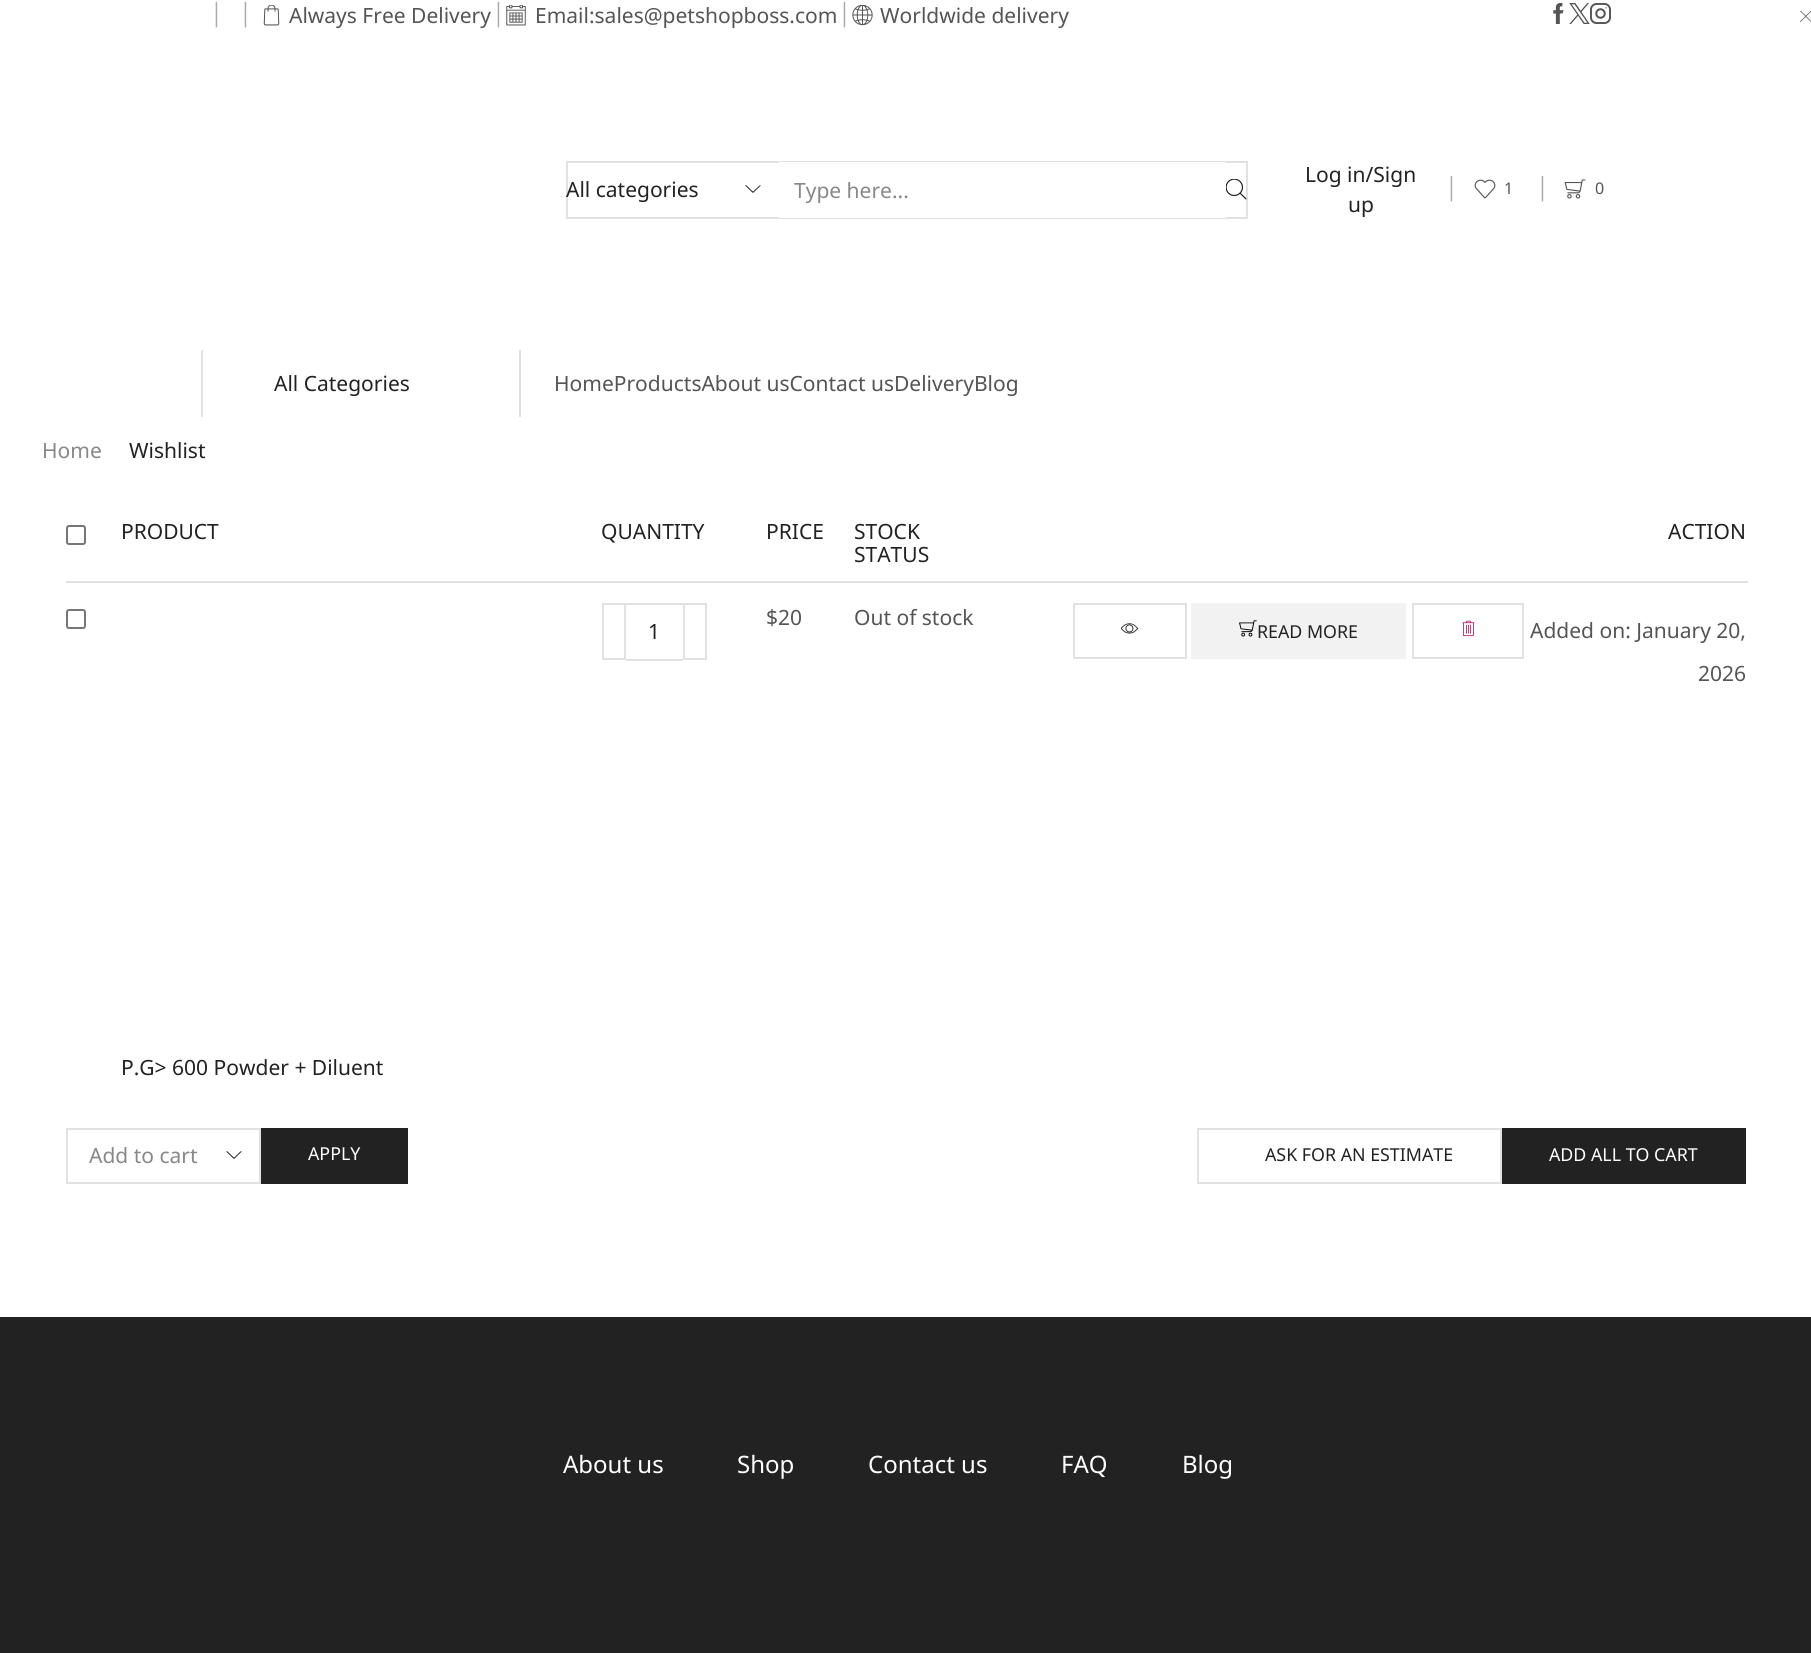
import math
import cairo

surface = cairo.ImageSurface(cairo.Format.RGB24, 1811, 1653)
ctx = cairo.Context(surface)
options = cairo.FontOptions()
options.set_hint_metrics(cairo.HintMetrics.OFF)
options.set_hint_style(cairo.HintStyle.NONE)
ctx.set_font_options(options)
ctx.set_miter_limit(4)


def ink(r, g, b):
    ctx.set_source_rgb(r / 255, g / 255, b / 255)


def write(x, y, s, family, size, color, bold=False, italic=False):
    ctx.select_font_face(family, cairo.FontSlant.ITALIC if italic else cairo.FontSlant.NORMAL, cairo.FontWeight.BOLD if bold else cairo.FontWeight.NORMAL)
    ctx.set_font_size(size)
    ink(*color)
    ctx.move_to(x, y)
    ctx.show_text(s)


def block(x, y, w, h, *color):
    ink(*color)
    ctx.rectangle(x, y, w, h)
    ctx.fill()


def round_path(x, y, w, h, r):
    ctx.new_sub_path()
    for i, (u, v) in enumerate([(x + w - r, y + h - r), (x + r, y + h - r), (x + r, y + r), (x + w - r, y + r)]):
        ctx.arc(u, v, r, i * math.pi / 2, (i + 1) * math.pi / 2)
    ctx.close_path()


def paste(path, x, y, w, h):
    ctx.save()
    ctx.set_source_surface(cairo.ImageSurface.create_from_png(path), x, y)
    ctx.rectangle(x, y, w, h)
    ctx.fill()
    ctx.restore()


s1 = dict(family="Liberation Serif", size=21, color=(170, 170, 170))
s2 = dict(family="Noto Sans", size=21, color=(85, 85, 85))
s3 = dict(family="Noto Sans", size=21, color=(34, 34, 34))
s4 = dict(family="Noto Sans", size=21, color=(136, 136, 136))
s5 = dict(family="Noto Sans", size=16, color=(85, 85, 85))
s6 = dict(family="Noto Sans", size=17.8, color=(34, 34, 34))
s7 = dict(family="Noto Sans", size=17.8, color=(255, 255, 255))
s8 = dict(family="Noto Sans", size=24, color=(255, 255, 255))

ink(255, 255, 255)
ctx.paint()
write(209, 21, "│", **s1)
write(238, 21, "│", **s1)
paste("pic1.png", 263, 5, 17, 21)
write(289, 23, "Always Free Delivery", **s2)
write(491, 21, "│", **s1)
paste("pic2.png", 506, 5, 20, 21)
write(535, 23, "Email:sales@petshopboss.com", **s2)
write(837, 21, "│", **s1)
paste("pic3.png", 852, 5, 21, 21)
write(880, 23, "Worldwide delivery", **s2)
paste("pic4.png", 1553, 3, 11, 21)
paste("pic5.png", 1569, 3, 21, 21)
paste("pic6.png", 1590, 3, 21, 21)
ctx.rectangle(567, 162, 680, 56)
ink(225, 225, 225)
ctx.stroke()
paste("pic7.png", 745, 185, 16, 8)
write(566, 197, "All categories", **s3)
block(779, 162, 447, 56, 255, 255, 255)
write(794, 198, "Type here...", **s4)
paste("pic8.png", 1226, 179, 21, 21)
write(1305, 182, "Log in/Sign", **s3)
write(1348, 212, "up", **s3)
write(1444, 195, "│", **s1)
paste("pic9.png", 1474, 179, 22, 20)
write(1504, 194, "1", **s5)
write(1535, 195, "│", **s1)
paste("pic10.png", 1564, 179, 22, 20)
write(1595, 194, "0", **s5)
block(519, 350, 2, 67, 225, 225, 225)
block(201, 350, 2, 67, 225, 225, 225)
write(274, 391, "All Categories", **s3)
write(554, 391, "HomeProductsAbout usContact usDeliveryBlog", **s2)
write(42, 458, "Home", **s4)
write(129, 458, "Wishlist", **s3)
block(66, 581, 1682, 2, 225, 225, 225)
round_path(67, 526, 18, 18, 2)
ink(118, 118, 118)
ctx.stroke()
write(121, 539, "PRODUCT", **s3)
write(601, 539, "QUANTITY", **s3)
write(766, 539, "PRICE", **s3)
write(854, 539, "STOCK", **s3)
write(854, 562, "STATUS", **s3)
write(1668, 539, "ACTION", **s3)
round_path(67, 610, 18, 18, 2)
ink(118, 118, 118)
ctx.stroke()
write(766, 625, "$20", **s2)
write(854, 625, "Out of stock", **s2)
ctx.rectangle(603, 604, 22, 55)
ink(225, 225, 225)
ctx.stroke()
block(626, 603, 57, 2, 225, 225, 225)
block(626, 659, 57, 2, 225, 225, 225)
write(648, 639, "1", **s3)
ctx.rectangle(684, 604, 22, 55)
ink(225, 225, 225)
ctx.stroke()
ctx.rectangle(1074, 604, 112, 54)
ctx.stroke()
paste("pic11.png", 1121, 623, 18, 11)
block(1191, 603, 215, 56, 242, 242, 242)
paste("pic12.png", 1239, 620, 18, 17)
write(1257, 638, "READ MORE", **s6)
ctx.rectangle(1413, 604, 110, 54)
ink(225, 225, 225)
ctx.stroke()
paste("pic13.png", 1462, 620, 13, 17)
write(1530, 638, "Added on: January 20,", **s2)
write(1698, 681, "2026", **s2)
write(121, 1075, "P.G> 600 Powder + Diluent", **s3)
paste("pic14.png", 226, 1151, 16, 8)
ctx.rectangle(67, 1129, 193, 54)
ink(225, 225, 225)
ctx.stroke()
write(89, 1163, "Add to cart", **s4)
block(261, 1128, 147, 56, 34, 34, 34)
write(308, 1160, "APPLY", **s7)
ctx.rectangle(1198, 1129, 303, 54)
ink(225, 225, 225)
ctx.stroke()
write(1265, 1161, "ASK FOR AN ESTIMATE", **s6)
block(1502, 1128, 244, 56, 34, 34, 34)
write(1549, 1161, "ADD ALL TO CART", **s7)
block(0, 1317, 1811, 336, 34, 34, 34)
write(563, 1473, "About us", **s8)
write(737, 1473, "Shop", **s8)
write(868, 1473, "Contact us", **s8)
write(1061, 1473, "FAQ", **s8)
write(1182, 1473, "Blog", **s8)
paste("pic15.png", 1800, 11, 11, 11)
surface.write_to_png("screenshot.png")
